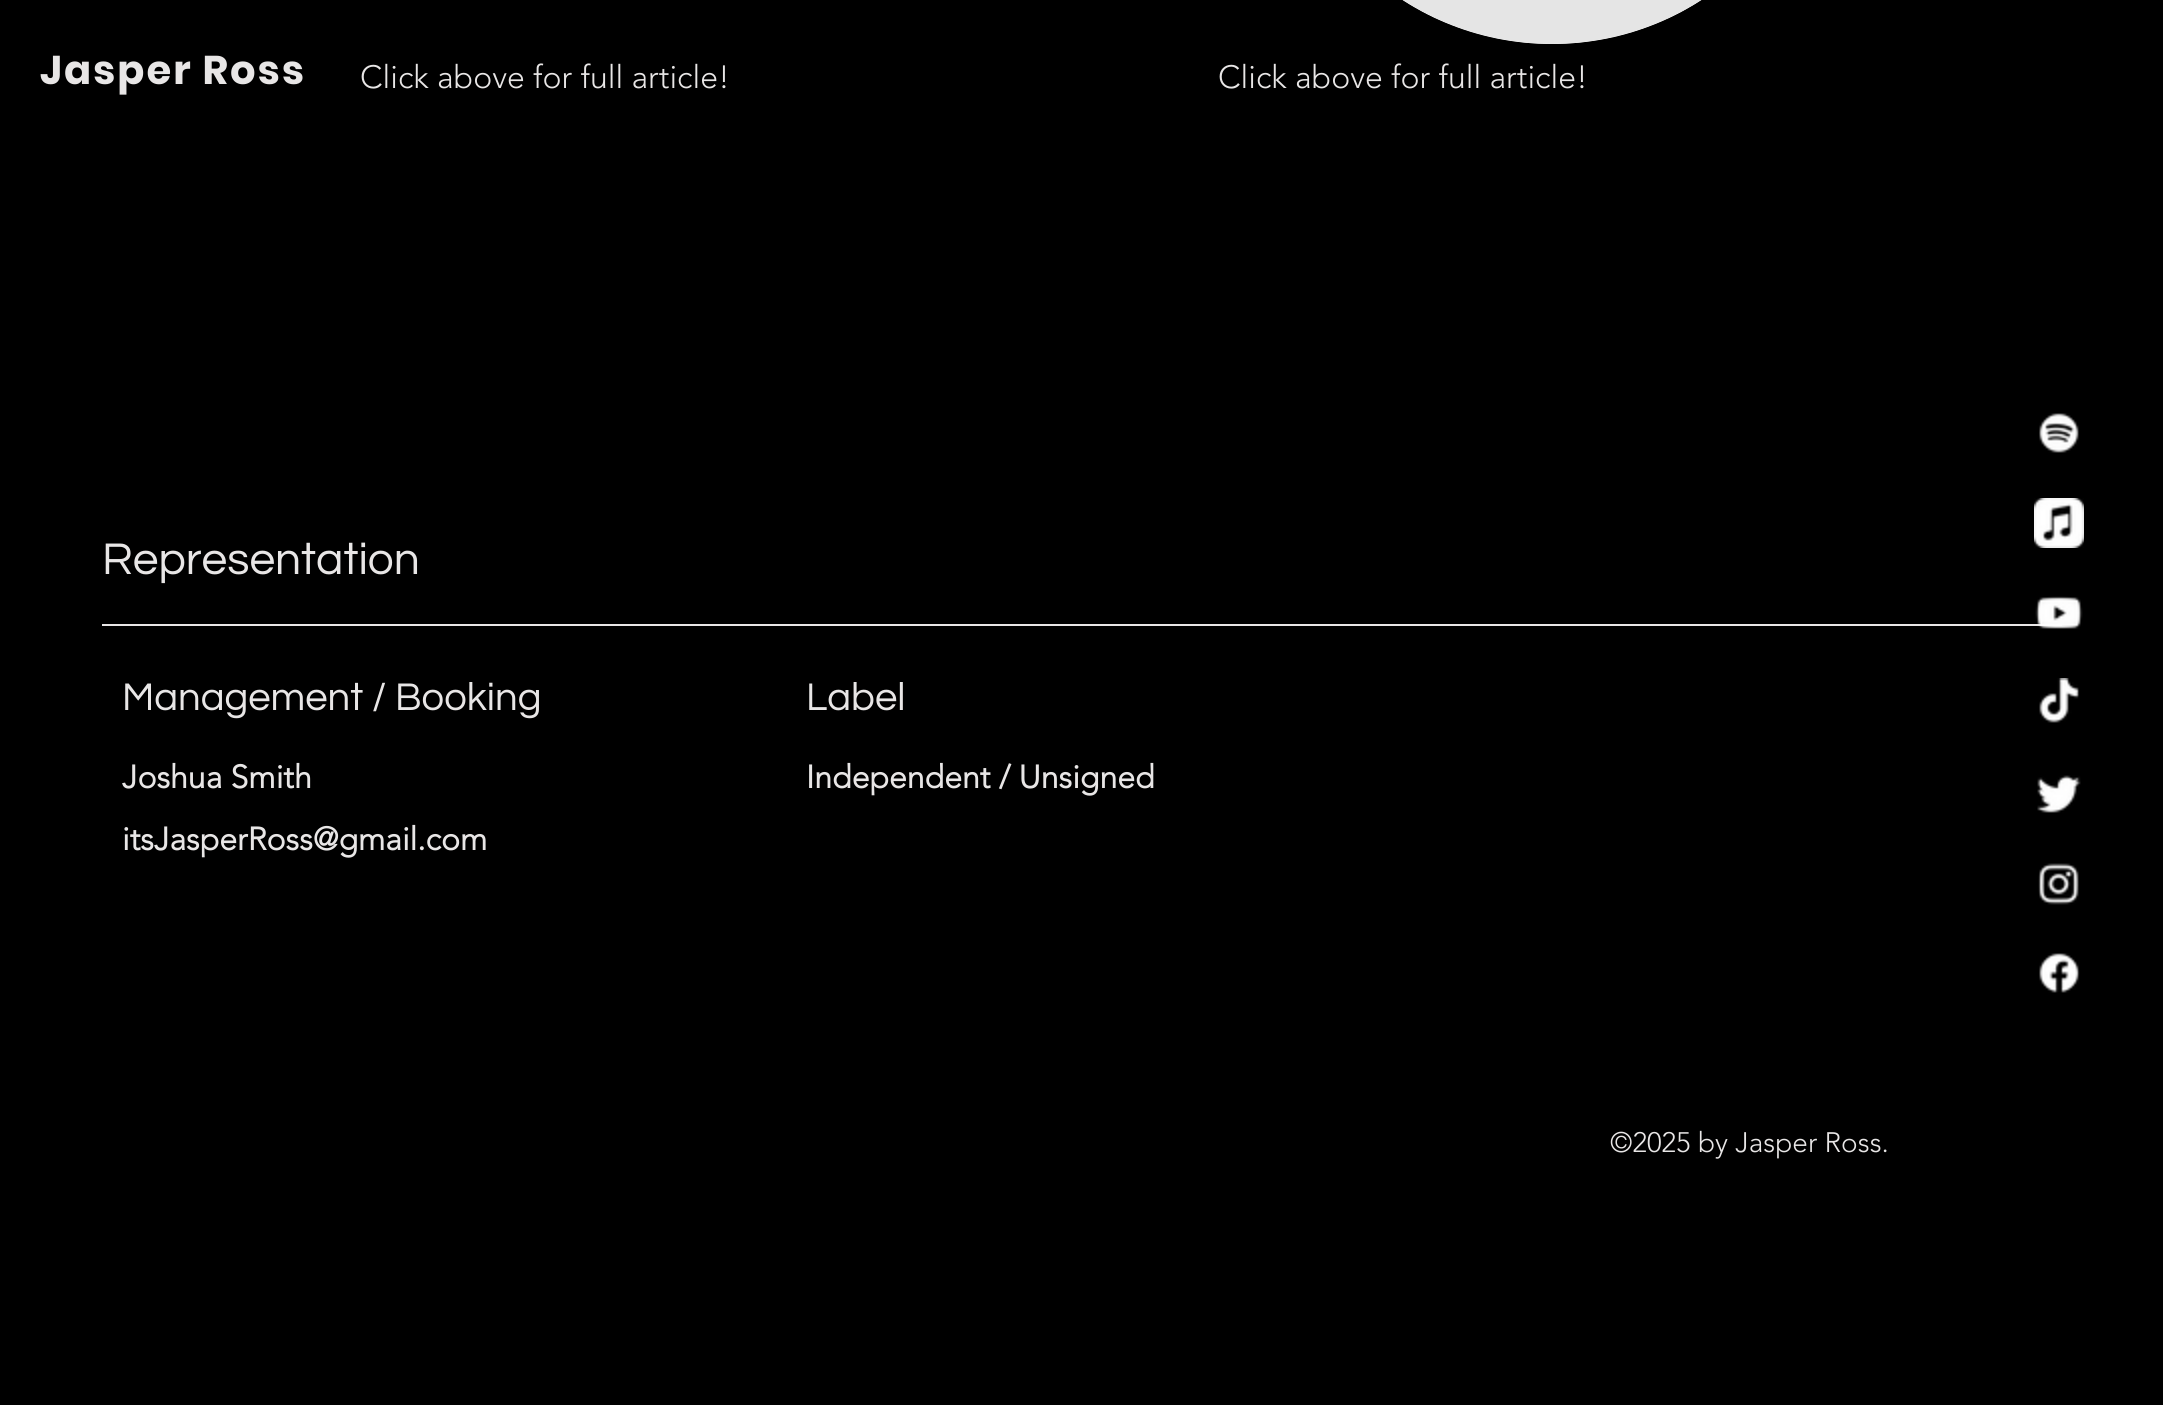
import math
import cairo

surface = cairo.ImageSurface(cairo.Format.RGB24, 2163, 1405)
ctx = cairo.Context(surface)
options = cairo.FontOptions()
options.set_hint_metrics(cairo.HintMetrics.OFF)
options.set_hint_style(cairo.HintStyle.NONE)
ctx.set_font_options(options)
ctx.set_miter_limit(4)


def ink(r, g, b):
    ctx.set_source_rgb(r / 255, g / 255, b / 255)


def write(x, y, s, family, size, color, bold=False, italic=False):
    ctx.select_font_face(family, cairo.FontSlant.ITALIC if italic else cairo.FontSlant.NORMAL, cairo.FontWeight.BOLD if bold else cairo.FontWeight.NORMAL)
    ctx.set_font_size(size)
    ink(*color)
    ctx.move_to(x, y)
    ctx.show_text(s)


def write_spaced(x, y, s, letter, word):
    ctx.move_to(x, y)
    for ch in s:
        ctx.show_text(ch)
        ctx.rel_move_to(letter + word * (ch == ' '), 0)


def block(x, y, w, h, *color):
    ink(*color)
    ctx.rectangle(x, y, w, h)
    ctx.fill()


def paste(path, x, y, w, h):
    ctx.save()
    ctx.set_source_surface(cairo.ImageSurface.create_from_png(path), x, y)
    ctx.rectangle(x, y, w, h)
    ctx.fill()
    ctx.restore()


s1 = dict(family="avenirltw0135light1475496 Light", size=32, color=(232, 230, 230))
s2 = dict(family="Questrial", size=46, color=(232, 230, 230))
s3 = dict(family="Questrial", size=40, color=(232, 230, 230))
s4 = dict(family="avenirltw0135light1475496", size=32, color=(232, 230, 230), bold=True)
s5 = dict(family="avenirltw0135light1475496 Light", size=28, color=(232, 230, 230))

ink(0, 0, 0)
ctx.paint()
ctx.select_font_face("Poppins", cairo.FontSlant.NORMAL, cairo.FontWeight.BOLD)
ctx.set_font_size(40)
ink(232, 230, 230)
write_spaced(40, 84, "Jasper Ross", 2, 0)
ink(255, 255, 255)
ctx.new_path()
ctx.move_to(1552, -500)
ctx.curve_to(1703.5, -500, 1826, -378, 1826, -228)
ctx.curve_to(1826, -78, 1703.5, 44, 1552, 44)
ctx.curve_to(1400.5, 44, 1278, -78, 1278, -228)
ctx.curve_to(1278, -378, 1400.5, -500, 1552, -500)
ctx.close_path()
ctx.fill()
paste("pic1.png", 1403, 0, 298, 44)
write(360, 88, "Click above for full article!", **s1)
write(1218, 88, "Click above for full article!", **s1)
write(102, 574, "Representation", **s2)
block(102, 624, 1960, 2, 232, 230, 230)
write(122, 710, "Management / Booking", **s3)
write(122, 788, "Joshua Smith", **s4)
write(122, 850, "itsJasperRoss@gmail.com", **s4)
write(806, 710, "Label", **s3)
write(806, 788, "Independent / Unsigned", **s4)
write(1610, 1152, "©2025 by Jasper Ross.", **s5)
paste("pic2.png", 2039, 413, 40, 40)
paste("pic3.png", 2034, 498, 50, 50)
paste("pic4.png", 2035, 596, 48, 33)
paste("pic5.png", 2039, 678, 40, 45)
paste("pic6.png", 2037, 775, 44, 38)
paste("pic7.png", 2038, 863, 41, 42)
paste("pic8.png", 2039, 953, 41, 40)
surface.write_to_png("screenshot.png")
